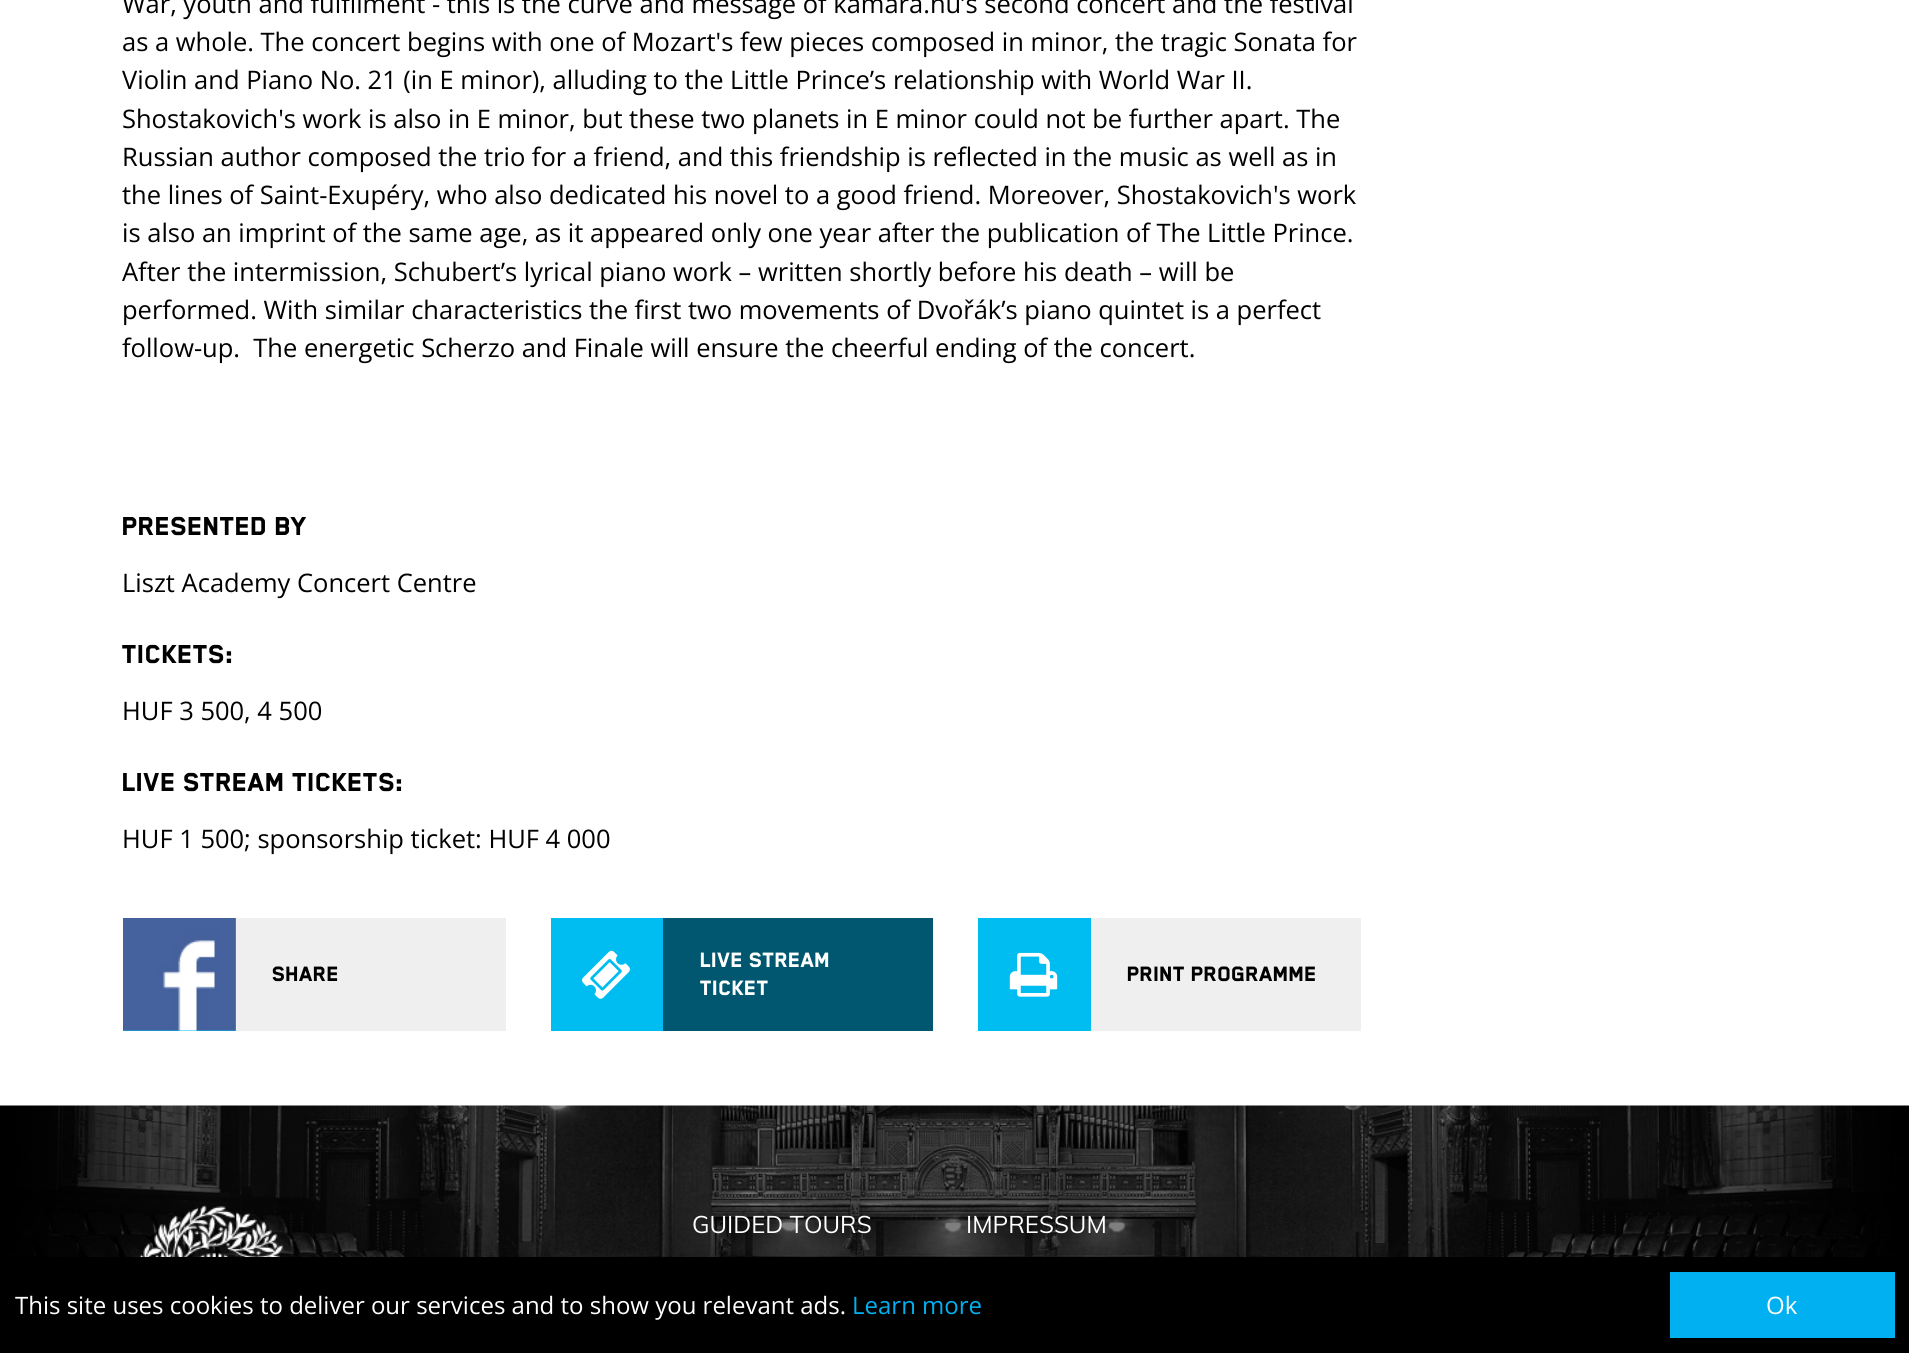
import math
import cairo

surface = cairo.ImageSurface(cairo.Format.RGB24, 1909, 1353)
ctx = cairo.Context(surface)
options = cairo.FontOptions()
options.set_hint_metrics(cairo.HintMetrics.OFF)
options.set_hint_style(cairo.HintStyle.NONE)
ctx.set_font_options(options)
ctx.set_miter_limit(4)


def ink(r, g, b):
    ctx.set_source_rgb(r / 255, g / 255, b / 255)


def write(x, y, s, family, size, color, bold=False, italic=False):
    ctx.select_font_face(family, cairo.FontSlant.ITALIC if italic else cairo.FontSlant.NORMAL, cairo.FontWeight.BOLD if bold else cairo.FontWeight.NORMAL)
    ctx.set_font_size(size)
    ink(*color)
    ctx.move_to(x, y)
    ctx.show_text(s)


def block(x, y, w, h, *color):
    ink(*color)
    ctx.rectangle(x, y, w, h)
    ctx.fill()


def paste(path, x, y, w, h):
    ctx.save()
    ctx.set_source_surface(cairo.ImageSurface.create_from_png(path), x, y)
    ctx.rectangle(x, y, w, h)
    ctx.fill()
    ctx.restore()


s1 = dict(family="Open Sans", size=25.5, color=(0, 0, 0))
s2 = dict(family="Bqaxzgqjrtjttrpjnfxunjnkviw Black", size=30, color=(0, 0, 0))
s3 = dict(family="Bqaxzgqjrtjttrpjnfxunjnkviw Black", size=24, color=(0, 0, 0))
s4 = dict(family="Bqaxzgqjrtjttrpjnfxunjnkviw Black", size=24, color=(255, 255, 255))
s5 = dict(family="Muli", size=24, color=(255, 255, 255))
s6 = dict(family="Open Sans", size=24, color=(255, 255, 255))
s7 = dict(family="Open Sans", size=24, color=(0, 176, 240))

ink(255, 255, 255)
ctx.paint()
write(122, 13, "War, youth and fulfilment - this is the curve and message of kamara.hu’s second concert and the festival", **s1)
write(122, 51, "as a whole. The concert begins with one of Mozart's few pieces composed in minor, the tragic Sonata for", **s1)
write(122, 89, "Violin and Piano No. 21 (in E minor), alluding to the Little Prince’s relationship with World War II.", **s1)
write(122, 128, "Shostakovich's work is also in E minor, but these two planets in E minor could not be further apart. The", **s1)
write(122, 166, "Russian author composed the trio for a friend, and this friendship is reflected in the music as well as in", **s1)
write(122, 204, "the lines of Saint-Exupéry, who also dedicated his novel to a good friend. Moreover, Shostakovich's work", **s1)
write(122, 242, "is also an imprint of the same age, as it appeared only one year after the publication of The Little Prince.", **s1)
write(122, 281, "After the intermission, Schubert’s lyrical piano work – written shortly before his death – will be", **s1)
write(122, 319, "performed. With similar characteristics the first two movements of Dvořák’s piano quintet is a perfect", **s1)
write(122, 357, "follow-up.  The energetic Scherzo and Finale will ensure the cheerful ending of the concert.", **s1)
write(122, 535, "PRESENTED BY", **s2)
write(122, 592, "Liszt Academy Concert Centre", **s1)
write(122, 663, "TICKETS:", **s2)
write(122, 720, "HUF 3 500, 4 500", **s1)
write(122, 791, "LIVE STREAM TICKETS:", **s2)
write(122, 848, "HUF 1 500; sponsorship ticket: HUF 4 000", **s1)
block(236, 918, 270, 113, 239, 239, 239)
block(123, 918, 113, 113, 0, 189, 241)
paste("pic1.png", 123, 918, 113, 113)
write(272, 981, "SHARE", **s3)
block(663, 918, 270, 113, 0, 87, 111)
block(551, 918, 112, 113, 0, 189, 241)
paste("pic2.png", 582, 950, 48, 49)
write(700, 967, "LIVE STREAM", **s4)
write(700, 995, "TICKET", **s4)
block(1091, 918, 270, 113, 239, 239, 239)
block(978, 918, 113, 113, 0, 189, 241)
paste("pic3.png", 1009, 952, 49, 45)
write(1127, 981, "PRINT PROGRAMME", **s3)
paste("pic4.png", 0, 1105, 1909, 152)
paste("pic5.png", 139, 1205, 144, 52)
write(692, 1233, "GUIDED TOURS", **s5)
write(966, 1233, "IMPRESSUM", **s5)
block(0, 1257, 1909, 96, 0, 0, 0)
write(15, 1314, "This site uses cookies to deliver our services and to show you relevant ads.", **s6)
write(852, 1314, "Learn more", **s7)
block(1670, 1272, 225, 66, 0, 176, 240)
write(1766, 1314, "Ok", **s6)
surface.write_to_png("screenshot.png")
